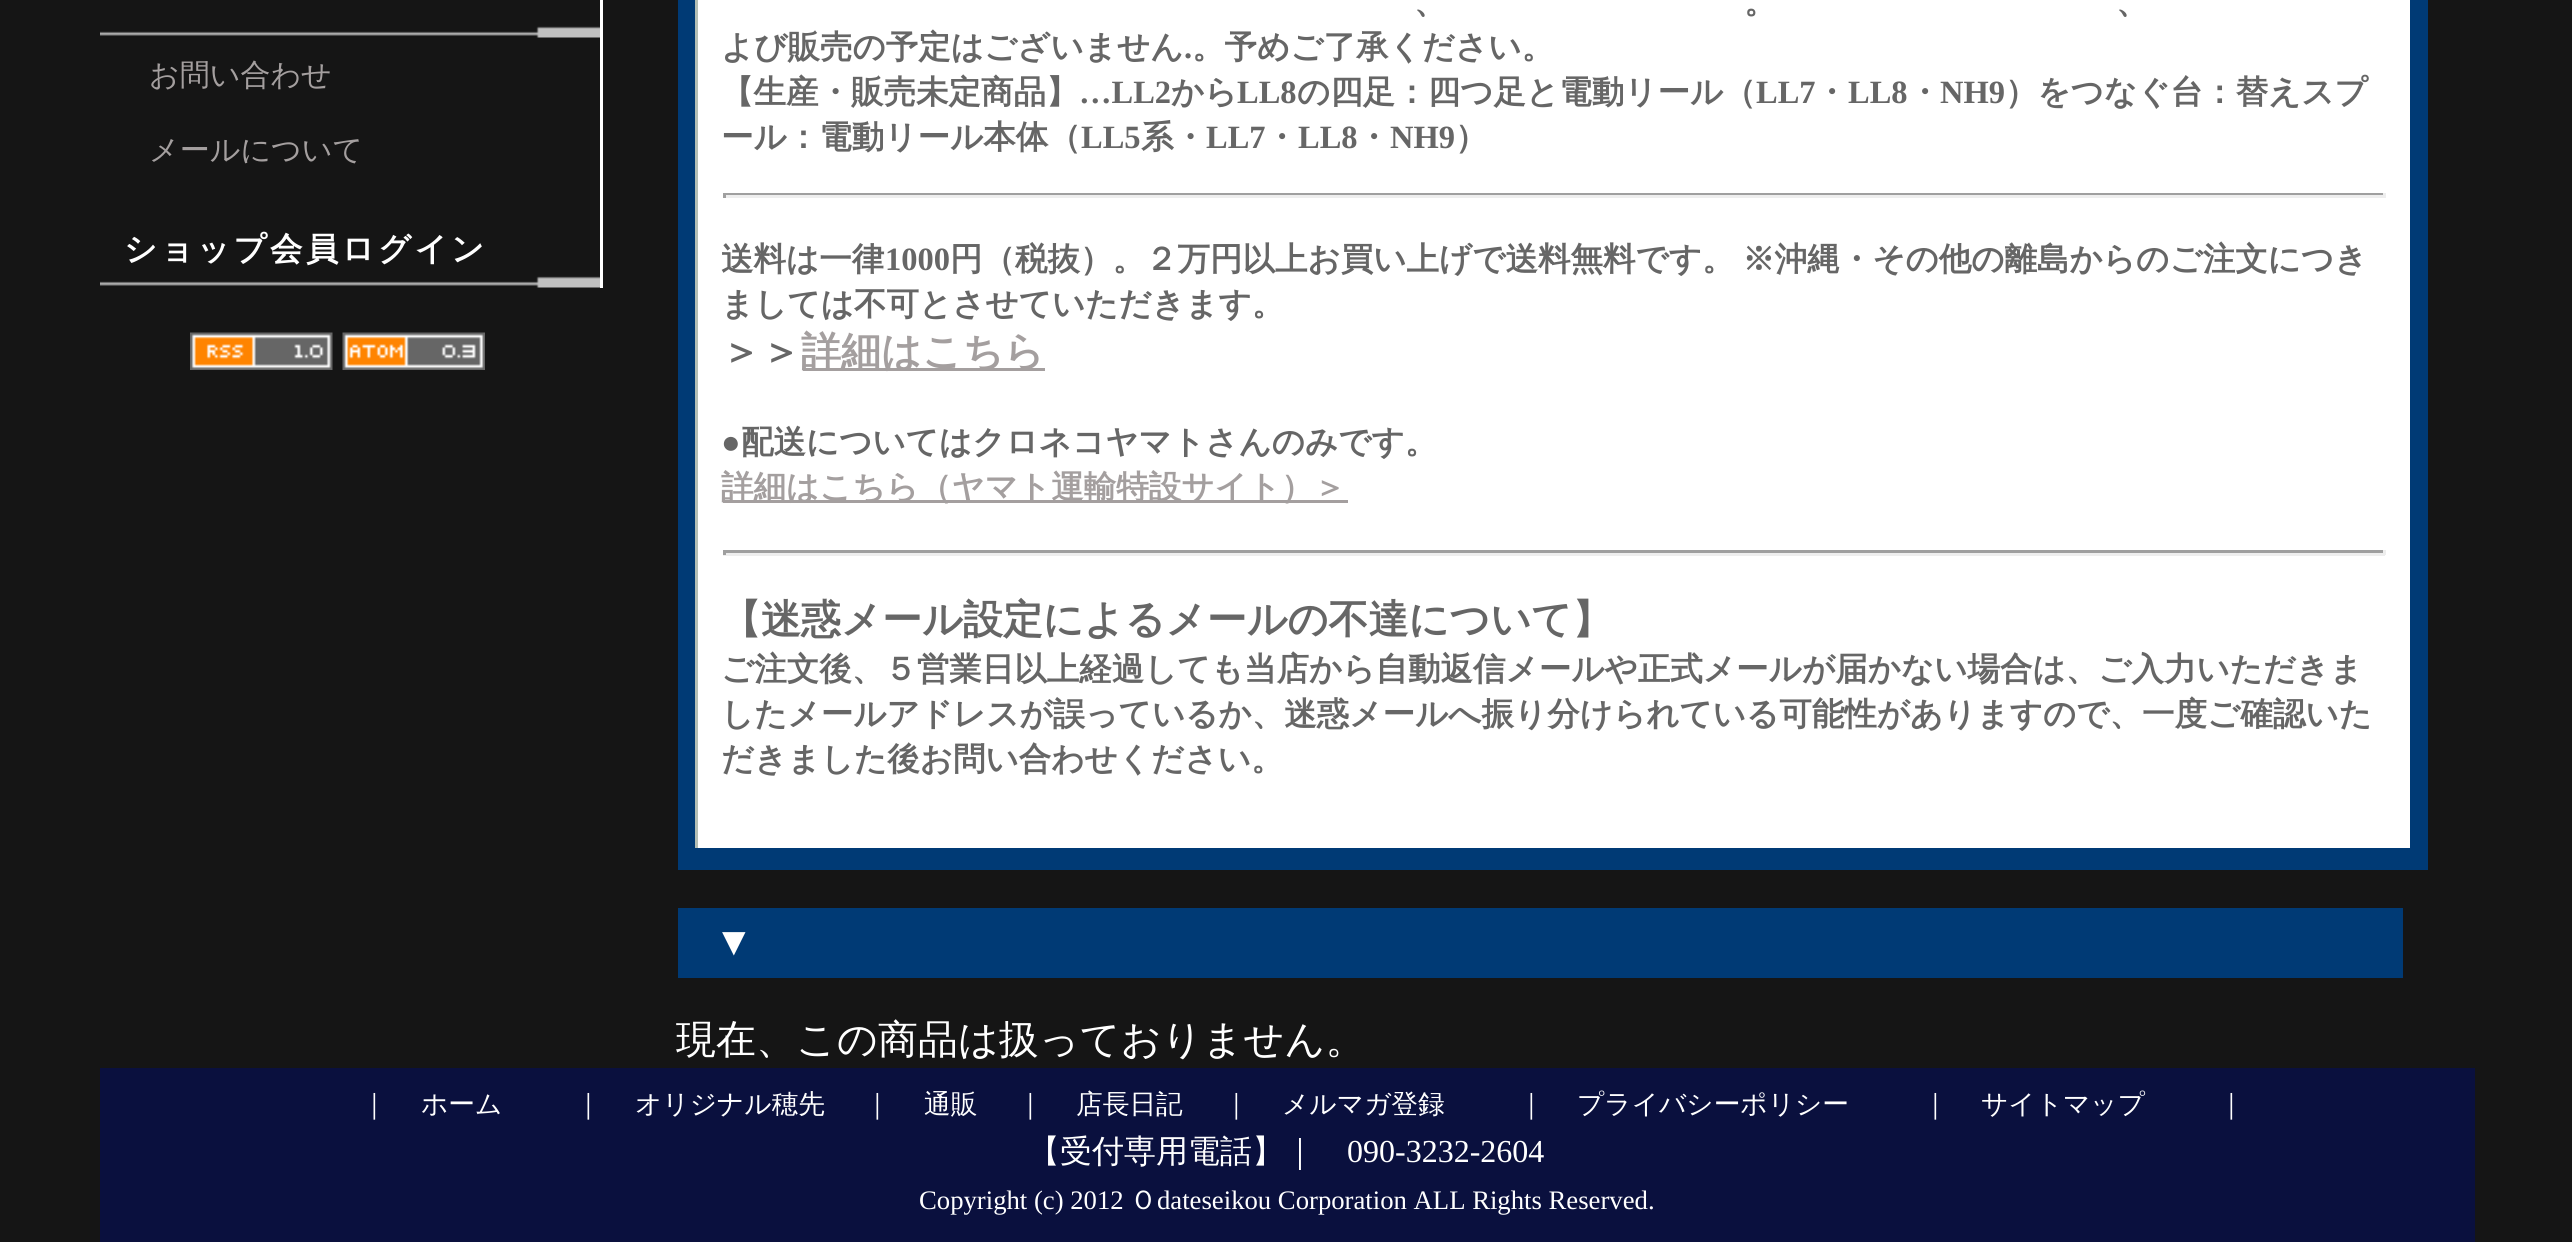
import math
import cairo

surface = cairo.ImageSurface(cairo.Format.RGB24, 2572, 1242)
ctx = cairo.Context(surface)
options = cairo.FontOptions()
options.set_hint_metrics(cairo.HintMetrics.OFF)
options.set_hint_style(cairo.HintStyle.NONE)
ctx.set_font_options(options)
ctx.set_miter_limit(4)


def ink(r, g, b):
    ctx.set_source_rgb(r / 255, g / 255, b / 255)


def write(x, y, s, family, size, color, bold=False, italic=False):
    ctx.select_font_face(family, cairo.FontSlant.ITALIC if italic else cairo.FontSlant.NORMAL, cairo.FontWeight.BOLD if bold else cairo.FontWeight.NORMAL)
    ctx.set_font_size(size)
    ink(*color)
    ctx.move_to(x, y)
    ctx.show_text(s)


def write_spaced(x, y, s, letter, word):
    ctx.move_to(x, y)
    for ch in s:
        ctx.show_text(ch)
        ctx.rel_move_to(letter + word * (ch == ' '), 0)


def block(x, y, w, h, *color):
    ink(*color)
    ctx.rectangle(x, y, w, h)
    ctx.fill()


def paste(path, x, y, w, h):
    ctx.save()
    ctx.set_source_surface(cairo.ImageSurface.create_from_png(path), x, y)
    ctx.rectangle(x, y, w, h)
    ctx.fill()
    ctx.restore()


s1 = dict(family="WenQuanYi Zen Hei Medium", size=30, color=(164, 159, 159))
s2 = dict(family="WenQuanYi Zen Hei", size=32.5, color=(102, 102, 102), bold=True)
s3 = dict(family="Liberation Serif", size=32.5, color=(102, 102, 102), bold=True)
s4 = dict(family="WenQuanYi Zen Hei", size=40, color=(102, 102, 102), bold=True)
s5 = dict(family="WenQuanYi Zen Hei", size=40, color=(164, 159, 159), bold=True)
s6 = dict(family="WenQuanYi Zen Hei", size=32.5, color=(164, 159, 159), bold=True)
s7 = dict(family="Liberation Serif", size=40, color=(255, 255, 255))
s8 = dict(family="WenQuanYi Zen Hei Medium", size=40, color=(255, 255, 255))
s9 = dict(family="WenQuanYi Zen Hei Medium", size=26.7, color=(255, 255, 255))
s10 = dict(family="WenQuanYi Zen Hei Medium", size=32, color=(255, 255, 255))
s11 = dict(family="Liberation Serif", size=32, color=(255, 255, 255))
s12 = dict(family="Liberation Serif", size=26.7, color=(255, 255, 255))

ink(21, 21, 21)
ctx.paint()
block(600, 0, 3, 288, 255, 255, 255)
paste("pic1.png", 100, 26, 500, 12)
write(149, 85, "お問い合わせ", **s1)
write(149, 160, "メールについて", **s1)
paste("pic2.png", 100, 276, 500, 12)
ctx.select_font_face("WenQuanYi Zen Hei", cairo.FontSlant.NORMAL, cairo.FontWeight.BOLD)
ctx.set_font_size(32.5)
ink(255, 255, 255)
write_spaced(124, 260, "ショップ会員ログイン", 3.25, 0)
paste("pic3.png", 190, 332, 143, 38)
paste("pic4.png", 342, 332, 143, 38)
block(678, 0, 1750, 870, 0, 58, 117)
block(698, 0, 1712, 848, 255, 255, 255)
block(695, 0, 3, 848, 180, 190, 180)
ink(102, 102, 102)
write_spaced(1414, 13, "、", 0, -2)
write_spaced(1744, 13, "。", 0, -2)
write_spaced(2116, 13, "、", 0, -2)
write(721, 58, "よび販売の予定はございません", **s2)
write(1184, 58, ".", **s3)
write(1192, 58, "。予めご了承ください。", **s2)
write(721, 103, "【生産・販売未定商品】", **s2)
write(1079, 103, "…LL2", **s3)
write(1171, 103, "から", **s2)
write(1237, 103, "LL8", **s3)
write(1297, 103, "の四足：四つ足と電動リール（", **s2)
write(1756, 103, "LL7", **s3)
write(1815, 103, "・", **s2)
write(1848, 103, "LL8", **s3)
write(1908, 103, "・", **s2)
write(1940, 103, "NH9", **s3)
write(2005, 103, "）をつなぐ台：替えスプ", **s2)
write(721, 148, "ール：電動リール本体（", **s2)
write(1081, 148, "LL5", **s3)
write(1141, 148, "系・", **s2)
write(1206, 148, "LL7", **s3)
write(1265, 148, "・", **s2)
write(1298, 148, "LL8", **s3)
write(1357, 148, "・", **s2)
write(1390, 148, "NH9", **s3)
write(1455, 148, "）", **s2)
block(723, 193, 1662, 2, 159, 159, 159)
block(2383, 193, 3, 5, 238, 238, 238)
block(723, 195, 1662, 3, 238, 238, 238)
block(723, 193, 3, 5, 159, 159, 159)
write(721, 270, "送料は一律", **s2)
write(885, 270, "1000", **s3)
ctx.select_font_face("WenQuanYi Zen Hei", cairo.FontSlant.NORMAL, cairo.FontWeight.BOLD)
write_spaced(950, 270, "円（税抜）。２万円以上お買い上げで送料無料です。 ※沖縄・その他の離島からのご注文につき", 0, -2)
write(721, 315, "ましては不可とさせていただきます。", **s2)
write(721, 365, "＞＞", **s4)
block(803, 368, 242, 3, 164, 159, 159)
write(801, 365, "詳細はこちら", **s5)
write(721, 453, "●", **s3)
write(741, 453, "配送についてはクロネコヤマトさんのみです。", **s2)
block(723, 500, 625, 3, 164, 159, 159)
write(721, 498, "詳細はこちら（ヤマト運輸特設サイト）＞", **s6)
block(723, 550, 1662, 3, 159, 159, 159)
block(2383, 550, 3, 5, 238, 238, 238)
block(723, 553, 1662, 3, 238, 238, 238)
block(723, 550, 3, 5, 159, 159, 159)
write(721, 633, "【迷惑メール設定によるメールの不達について】", **s4)
write(721, 680, "ご注文後、５営業日以上経過しても当店から自動返信メールや正式メールが届かない場合は、ご入力いただきま", **s2)
write(721, 725, "したメールアドレスが誤っているか、迷惑メールへ振り分けられている可能性がありますので、一度ご確認いた", **s2)
write(721, 770, "だきました後お問い合わせください。", **s2)
block(678, 908, 1725, 70, 0, 58, 117)
write(714, 955, "▼", **s7)
write(676, 1053, "現在、この商品は扱っておりません。", **s8)
block(100, 1068, 2375, 174, 10, 16, 62)
write(361, 1113, "｜", **s9)
write(421, 1113, "ホーム", **s9)
write(575, 1113, "｜", **s9)
write(635, 1113, "オリジナル穂先", **s9)
write(864, 1113, "｜", **s9)
write(924, 1113, "通販", **s9)
write(1017, 1113, "｜", **s9)
write(1076, 1113, "店長日記", **s9)
write(1223, 1113, "｜", **s9)
write(1282, 1113, "メルマガ登録", **s9)
write(1518, 1113, "｜", **s9)
write(1577, 1113, "プライバシーポリシー", **s9)
write(1922, 1113, "｜", **s9)
write(1981, 1113, "サイトマップ", **s9)
write(2218, 1113, "｜", **s9)
write(1028, 1162, "【受付専用電話】｜", **s10)
write(1347, 1162, "090-3232-2604", **s11)
write(919, 1209, "Copyright (c) 2012", **s12)
write(1130, 1209, "Ｏ", **s9)
write(1157, 1209, "dateseikou Corporation ALL Rights Reserved.", **s12)
surface.write_to_png("screenshot.png")
